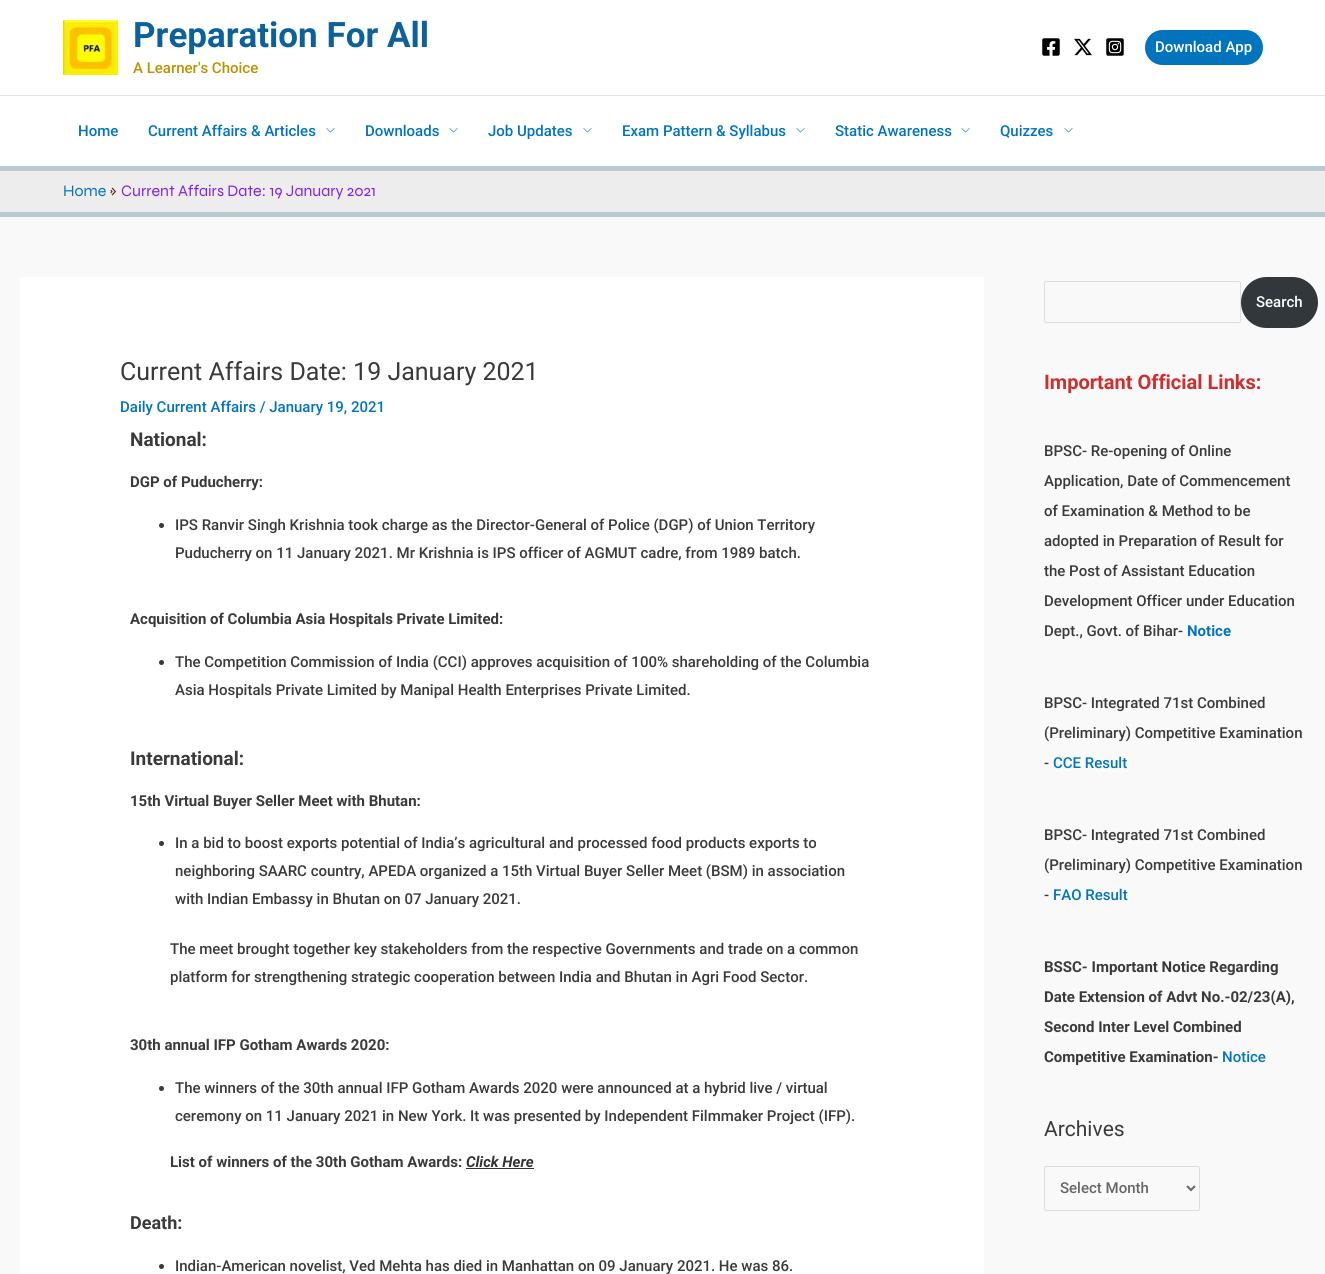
import math
import cairo

surface = cairo.ImageSurface(cairo.Format.RGB24, 1325, 1274)
ctx = cairo.Context(surface)
options = cairo.FontOptions()
options.set_hint_metrics(cairo.HintMetrics.OFF)
options.set_hint_style(cairo.HintStyle.NONE)
ctx.set_font_options(options)
ctx.set_miter_limit(4)


def ink(r, g, b):
    ctx.set_source_rgb(r / 255, g / 255, b / 255)


def write(x, y, s, family, size, color, bold=False, italic=False):
    ctx.select_font_face(family, cairo.FontSlant.ITALIC if italic else cairo.FontSlant.NORMAL, cairo.FontWeight.BOLD if bold else cairo.FontWeight.NORMAL)
    ctx.set_font_size(size)
    ink(*color)
    ctx.move_to(x, y)
    ctx.show_text(s)


def block(x, y, w, h, *color):
    ink(*color)
    ctx.rectangle(x, y, w, h)
    ctx.fill()


def round_path(x, y, w, h, r):
    ctx.new_sub_path()
    for i, (u, v) in enumerate([(x + w - r, y + h - r), (x + r, y + h - r), (x + r, y + r), (x + w - r, y + r)]):
        ctx.arc(u, v, r, i * math.pi / 2, (i + 1) * math.pi / 2)
    ctx.close_path()


def paste(path, x, y, w, h):
    ctx.save()
    ctx.set_source_surface(cairo.ImageSurface.create_from_png(path), x, y)
    ctx.rectangle(x, y, w, h)
    ctx.fill()
    ctx.restore()


s1 = dict(family="Roboto", size=35, color=(12, 97, 154), bold=True)
s2 = dict(family="Roboto Medium", size=15, color=(186, 146, 0))
s3 = dict(family="Roboto Medium", size=15, color=(255, 255, 255))
s4 = dict(family="Roboto Medium", size=15, color=(2, 116, 190))
s5 = dict(family="Syne", size=16, color=(2, 116, 190))
s6 = dict(family="Syne", size=16, color=(89, 46, 10))
s7 = dict(family="Syne", size=16, color=(130, 36, 227))
s8 = dict(family="Roboto", size=25, color=(58, 58, 58))
s9 = dict(family="Roboto", size=19, color=(58, 58, 58), bold=True)
s10 = dict(family="Roboto", size=15, color=(58, 58, 58), bold=True)
s11 = dict(family="Roboto Medium", size=15, color=(58, 58, 58))
s12 = dict(family="Roboto", size=15, color=(51, 51, 51), bold=True, italic=True)
s13 = dict(family="Roboto", size=18, color=(58, 58, 58), bold=True)
s14 = dict(family="Roboto", size=20, color=(207, 46, 46), bold=True)
s15 = dict(family="Roboto", size=15, color=(2, 116, 190), bold=True)
s16 = dict(family="Roboto", size=21, color=(58, 58, 58))
s17 = dict(family="Roboto Medium", size=15, color=(102, 102, 102))

ink(249, 249, 249)
ctx.paint()
block(0, 0, 1325, 95, 255, 255, 255)
block(0, 95, 1325, 1, 229, 229, 229)
paste("pic1.png", 63, 20, 55, 55)
write(133, 47, "Preparation For All", **s1)
write(133, 73, "A Learner's Choice", **s2)
paste("pic2.png", 1042, 38, 18, 18)
paste("pic3.png", 1074, 38, 18, 18)
paste("pic4.png", 1106, 38, 18, 18)
ink(2, 116, 190)
round_path(1145, 30, 118, 35, 17.5)
ctx.fill()
write(1155, 52, "Download App", **s3)
block(0, 96, 1325, 70, 255, 255, 255)
block(0, 166, 1325, 5, 186, 202, 209)
write(78, 136, "Home", **s4)
write(148, 136, "Current Affairs & Articles", **s4)
paste("pic5.png", 326, 128, 9, 5)
write(365, 136, "Downloads", **s4)
paste("pic5.png", 449, 128, 9, 5)
write(488, 136, "Job Updates", **s4)
paste("pic5.png", 583, 128, 9, 5)
write(622, 136, "Exam Pattern & Syllabus", **s4)
paste("pic5.png", 796, 128, 9, 5)
write(835, 136, "Static Awareness", **s4)
paste("pic5.png", 961, 128, 9, 5)
write(1000, 136, "Quizzes", **s4)
paste("pic5.png", 1064, 128, 9, 5)
block(0, 171, 1325, 41, 237, 237, 237)
block(0, 212, 1325, 5, 186, 202, 209)
write(63, 196, "Home", **s5)
write(109, 196, "»", **s6)
write(121, 196, "Current Affairs Date: 19 January 2021", **s7)
block(20, 277, 964, 997, 255, 255, 255)
write(120, 380, "Current Affairs Date: 19 January 2021", **s8)
write(120, 412, "Daily Current Affairs / January 19, 2021", **s4)
write(130, 446, "National:", **s9)
write(130, 487, "DGP of Puducherry:", **s10)
ctx.new_path()
ctx.arc(161.5, 525.5, 2.5, 0, 2 * math.pi)
ctx.fill()
write(175, 530, "IPS Ranvir Singh Krishnia took charge as the Director-General of Police (DGP) of Union Territory", **s11)
write(175, 558, "Puducherry on 11 January 2021. Mr Krishnia is IPS officer of AGMUT cadre, from 1989 batch.", **s11)
write(130, 624, "Acquisition of Columbia Asia Hospitals Private Limited:", **s10)
ctx.new_path()
ctx.arc(161.5, 662.5, 2.5, 0, 2 * math.pi)
ctx.fill()
write(175, 667, "The Competition Commission of India (CCI) approves acquisition of 100% shareholding of the Columbia", **s11)
write(175, 695, "Asia Hospitals Private Limited by Manipal Health Enterprises Private Limited.", **s11)
write(130, 765, "International:", **s9)
write(130, 806, "15th Virtual Buyer Seller Meet with Bhutan:", **s10)
ctx.new_path()
ctx.arc(161.5, 843.5, 2.5, 0, 2 * math.pi)
ctx.fill()
write(175, 848, "In a bid to boost exports potential of India’s agricultural and processed food products exports to", **s11)
write(175, 876, "neighboring SAARC country, APEDA organized a 15th Virtual Buyer Seller Meet (BSM) in association", **s11)
write(175, 904, "with Indian Embassy in Bhutan on 07 January 2021.", **s11)
write(170, 954, "The meet brought together key stakeholders from the respective Governments and trade on a common", **s11)
write(170, 982, "platform for strengthening strategic cooperation between India and Bhutan in Agri Food Sector.", **s11)
write(130, 1050, "30th annual IFP Gotham Awards 2020:", **s10)
ctx.new_path()
ctx.arc(161.5, 1088.5, 2.5, 0, 2 * math.pi)
ctx.fill()
write(175, 1093, "The winners of the 30th annual IFP Gotham Awards 2020 were announced at a hybrid live / virtual", **s11)
write(175, 1121, "ceremony on 11 January 2021 in New York. It was presented by Independent Filmmaker Project (IFP).", **s11)
write(170, 1167, "List of winners of the 30th Gotham Awards:", **s10)
write(466, 1167, "Click Here", **s12)
block(466, 1168, 68, 1, 51, 51, 51)
write(130, 1229, "Death:", **s13)
ctx.new_path()
ctx.arc(161.5, 1266.5, 2.5, 0, 2 * math.pi)
ctx.fill()
write(175, 1271, "Indian-American novelist, Ved Mehta has died in Manhattan on 09 January 2021. He was 86.", **s11)
round_path(1044.5, 281.5, 196, 41, 1.5)
ink(221, 221, 221)
ctx.set_line_width(1)
ctx.stroke()
ink(50, 55, 60)
round_path(1241, 277, 77, 51, 25.5)
ctx.fill()
write(1256, 307, "Search", **s3)
write(1044, 389, "Important Official Links:", **s14)
write(1044, 456, "BPSC- Re-opening of Online", **s11)
write(1044, 486, "Application, Date of Commencement", **s11)
write(1044, 516, "of Examination & Method to be", **s11)
write(1044, 546, "adopted in Preparation of Result for", **s11)
write(1044, 576, "the Post of Assistant Education", **s11)
write(1044, 606, "Development Officer under Education", **s11)
write(1044, 636, "Dept., Govt. of Bihar-", **s11)
write(1187, 636, "Notice", **s15)
write(1044, 708, "BPSC- Integrated 71st Combined", **s11)
write(1044, 738, "(Preliminary) Competitive Examination", **s11)
write(1044, 768, "-", **s11)
write(1053, 768, "CCE Result", **s4)
write(1044, 840, "BPSC- Integrated 71st Combined", **s11)
write(1044, 870, "(Preliminary) Competitive Examination", **s11)
write(1044, 900, "-", **s11)
write(1053, 900, "FAO Result", **s4)
write(1044, 972, "BSSC- Important Notice Regarding", **s10)
write(1044, 1002, "Date Extension of Advt No.-02/23(A),", **s10)
write(1044, 1032, "Second Inter Level Combined", **s10)
write(1044, 1062, "Competitive Examination-", **s10)
write(1222, 1062, "Notice", **s4)
write(1044, 1136, "Archives", **s16)
round_path(1044.5, 1166.5, 155, 44, 1.5)
ink(221, 221, 221)
ctx.stroke()
ctx.new_path()
ctx.move_to(1187, 1186)
ctx.line_to(1191, 1190)
ctx.line_to(1195, 1186)
ink(102, 102, 102)
ctx.set_line_width(2)
ctx.stroke()
write(1060, 1193, "Select Month", **s17)
surface.write_to_png("screenshot.png")
